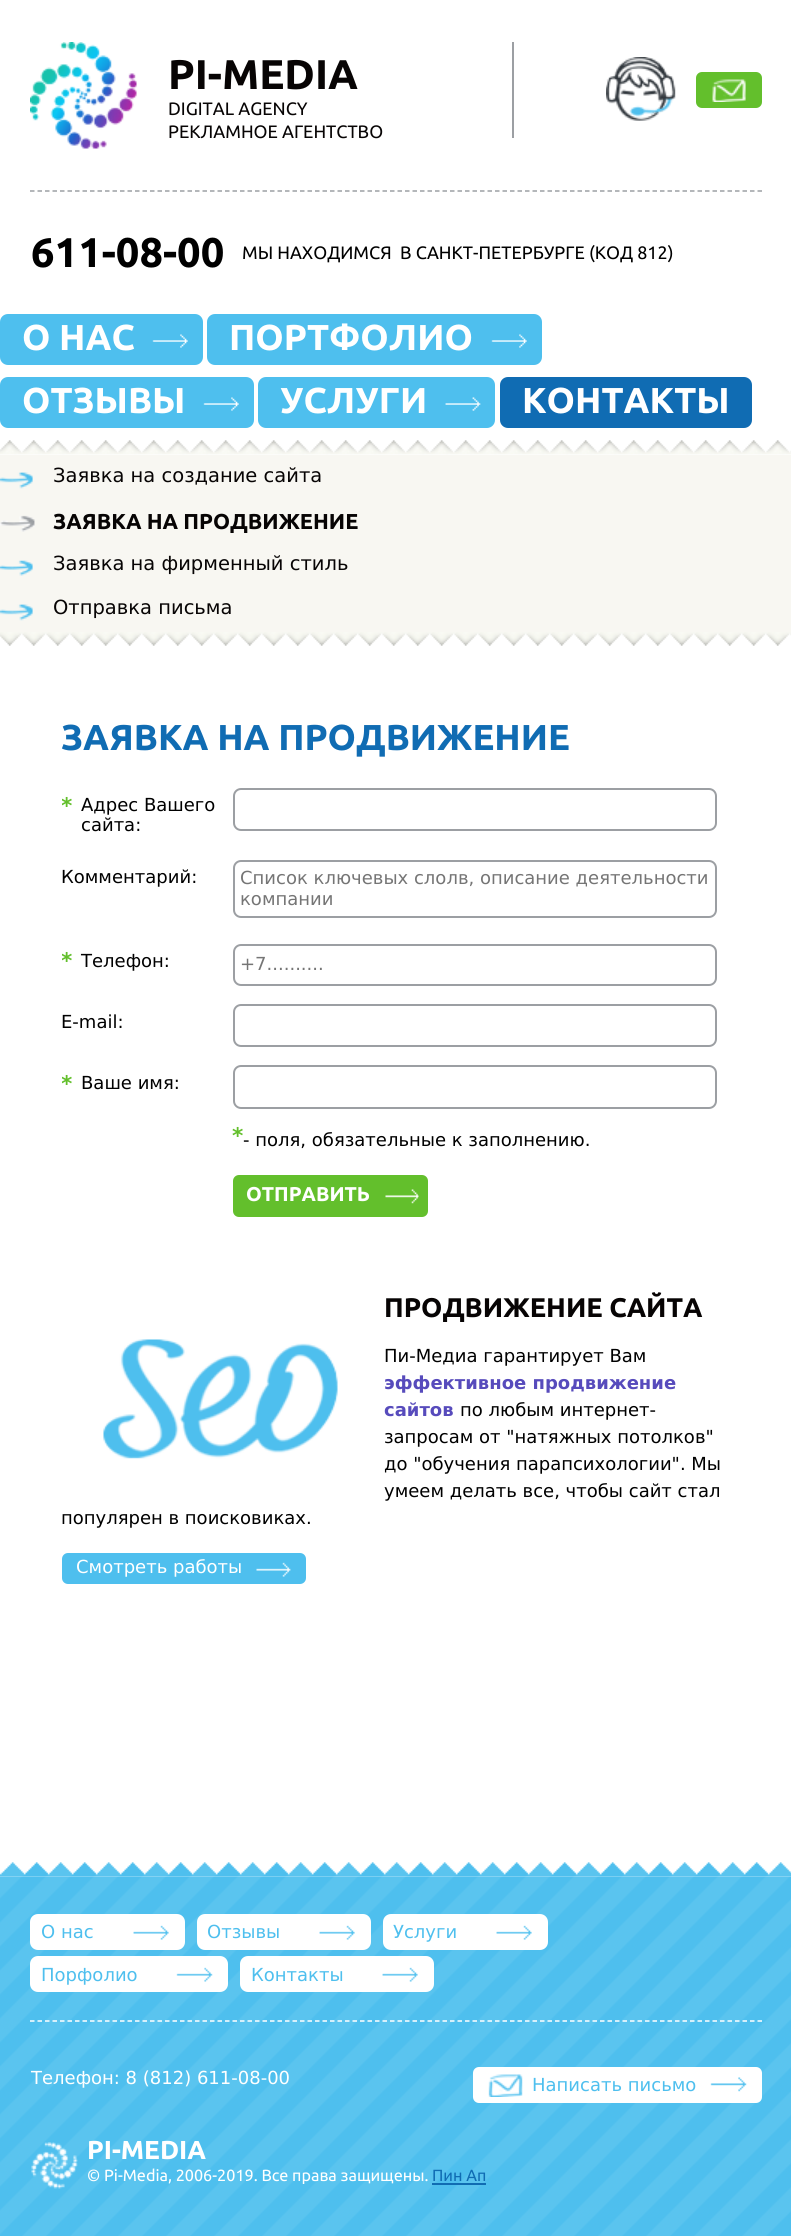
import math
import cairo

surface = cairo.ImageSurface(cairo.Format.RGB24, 791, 2236)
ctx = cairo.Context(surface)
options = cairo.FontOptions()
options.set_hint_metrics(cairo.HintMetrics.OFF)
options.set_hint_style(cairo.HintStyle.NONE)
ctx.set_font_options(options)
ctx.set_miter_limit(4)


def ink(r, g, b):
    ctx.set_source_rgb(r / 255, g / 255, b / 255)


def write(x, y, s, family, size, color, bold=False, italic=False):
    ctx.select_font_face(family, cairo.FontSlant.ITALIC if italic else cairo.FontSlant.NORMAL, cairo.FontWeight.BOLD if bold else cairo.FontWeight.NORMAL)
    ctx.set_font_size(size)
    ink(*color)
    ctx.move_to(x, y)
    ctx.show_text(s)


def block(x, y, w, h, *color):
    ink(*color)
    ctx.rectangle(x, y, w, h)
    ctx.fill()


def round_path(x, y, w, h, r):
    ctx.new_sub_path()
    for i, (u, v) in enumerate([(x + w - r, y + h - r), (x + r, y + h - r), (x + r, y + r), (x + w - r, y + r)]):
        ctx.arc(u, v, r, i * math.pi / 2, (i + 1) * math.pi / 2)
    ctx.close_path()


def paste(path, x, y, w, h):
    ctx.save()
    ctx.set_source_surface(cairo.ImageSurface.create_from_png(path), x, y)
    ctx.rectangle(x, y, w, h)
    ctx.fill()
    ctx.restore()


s1 = dict(family="Ubuntu", size=41.5, color=(7, 4, 4), bold=True)
s2 = dict(family="Ubuntu", size=18, color=(7, 4, 4))
s3 = dict(family="Ubuntu", size=41.5, color=(0, 0, 0), bold=True)
s4 = dict(family="Ubuntu", size=18, color=(0, 0, 0))
s5 = dict(family="Ubuntu", size=36, color=(255, 255, 255), bold=True)
s6 = dict(family="DejaVu Sans", size=19.5, color=(7, 4, 4))
s7 = dict(family="Ubuntu", size=21.6, color=(7, 4, 4), bold=True)
s8 = dict(family="Ubuntu", size=36, color=(16, 108, 179), bold=True)
s9 = dict(family="DejaVu Sans", size=21.6, color=(99, 191, 44), bold=True)
s10 = dict(family="DejaVu Sans", size=18, color=(0, 0, 0))
s11 = dict(family="DejaVu Sans", size=18, color=(117, 117, 117))
s12 = dict(family="Ubuntu", size=20, color=(255, 255, 255), bold=True)
s13 = dict(family="Ubuntu", size=27, color=(7, 4, 4), bold=True)
s14 = dict(family="DejaVu Sans", size=18, color=(87, 75, 188), bold=True)
s15 = dict(family="DejaVu Sans", size=18, color=(255, 255, 255))
s16 = dict(family="DejaVu Sans", size=18, color=(78, 191, 238))
s17 = dict(family="Ubuntu", size=26, color=(255, 255, 255), bold=True)
s18 = dict(family="Ubuntu", size=16.2, color=(255, 255, 255))
s19 = dict(family="Ubuntu", size=16.2, color=(16, 108, 179))

ink(255, 255, 255)
ctx.paint()
ctx.new_path()
ctx.move_to(30, 191)
ctx.line_to(762, 191)
ink(156, 159, 163)
ctx.set_line_width(1.5)
ctx.set_dash([4.5, 3])
ctx.stroke()
paste("pic1.png", 30, 42, 107, 107)
write(168, 89, "PI-MEDIA", **s1)
write(168, 115, "DIGITAL AGENCY", **s2)
write(168, 138, "РЕКЛАМНОЕ АГЕНТСТВО", **s2)
block(512, 42, 2, 96, 156, 159, 163)
paste("pic2.png", 606, 57, 70, 64)
ink(99, 191, 44)
round_path(696, 72, 66, 36, 6)
ctx.fill()
paste("pic3.png", 712, 79, 34, 23)
write(31, 267, "611-08-00", **s3)
write(242, 259, "МЫ НАХОДИМСЯ", **s4)
write(400, 259, "В САНКТ-ПЕТЕРБУРГЕ (КОД 812)", **s4)
ink(78, 191, 238)
round_path(0, 314, 203, 51, 8)
ctx.fill()
write(22, 350, "О НАС", **s5)
paste("pic4.png", 152, 334, 36, 14)
ink(78, 191, 238)
round_path(207, 314, 335, 51, 8)
ctx.fill()
write(229, 350, "ПОРТФОЛИО", **s5)
paste("pic4.png", 491, 334, 36, 14)
ink(78, 191, 238)
round_path(0, 377, 254, 51, 8)
ctx.fill()
write(22, 413, "ОТЗЫВЫ", **s5)
paste("pic4.png", 203, 397, 36, 14)
ink(78, 191, 238)
round_path(258, 377, 237, 51, 8)
ctx.fill()
write(280, 413, "УСЛУГИ", **s5)
paste("pic5.png", 445, 397, 36, 14)
ink(16, 108, 179)
round_path(500, 377, 252, 51, 8)
ctx.fill()
write(522, 413, "КОНТАКТЫ", **s5)
block(0, 455, 791, 177, 248, 247, 242)
paste("pic6.png", 0, 440, 791, 15)
paste("pic7.png", 0, 472, 33, 17)
write(53, 482, "Заявка на создание сайта", **s6)
paste("pic8.png", 0, 515, 35, 17)
write(53, 529, "ЗАЯВКА НА ПРОДВИЖЕНИЕ", **s7)
paste("pic9.png", 0, 560, 33, 16)
write(53, 570, "Заявка на фирменный стиль", **s6)
paste("pic7.png", 0, 604, 33, 17)
write(53, 614, "Отправка письма", **s6)
paste("pic10.png", 0, 632, 791, 14)
write(61, 750, "ЗАЯВКА НА ПРОДВИЖЕНИЕ", **s8)
ctx.save()
ctx.rectangle(62, 779, 655, 72)
ctx.clip()
write(61, 813, "*", **s9)
ctx.restore()
write(81, 811, "Адрес Вашего", **s10)
write(81, 831, "сайта:", **s10)
round_path(234, 789, 482, 41, 7)
ink(156, 159, 163)
ctx.set_line_width(2)
ctx.set_dash([])
ctx.stroke()
write(61, 883, "Комментарий:", **s10)
round_path(234, 861, 482, 56, 7)
ink(156, 159, 163)
ctx.stroke()
write(240, 884, "Список ключевых слолв, описание деятельности", **s11)
write(240, 905, "компании", **s11)
ctx.save()
ctx.rectangle(62, 935, 655, 60)
ctx.clip()
write(61, 968, "*", **s9)
ctx.restore()
write(81, 967, "Телефон:", **s10)
round_path(234, 945, 482, 40, 7)
ink(156, 159, 163)
ctx.stroke()
write(240, 970, "+7..........", **s11)
write(61, 1028, "E-mail:", **s10)
round_path(234, 1005, 482, 41, 7)
ink(156, 159, 163)
ctx.stroke()
ctx.save()
ctx.rectangle(62, 1056, 655, 62)
ctx.clip()
write(61, 1091, "*", **s9)
ctx.restore()
write(81, 1089, "Ваше имя:", **s10)
round_path(234, 1066, 482, 42, 7)
ink(156, 159, 163)
ctx.stroke()
write(232, 1143, "*", **s9)
write(243, 1146, "- поля, обязательные к заполнению.", **s10)
ink(99, 191, 44)
round_path(233, 1175, 195, 42, 6)
ctx.fill()
write(246, 1201, "ОТПРАВИТЬ", **s12)
paste("pic11.png", 385, 1189, 34, 15)
write(384, 1317, "ПРОДВИЖЕНИЕ САЙТА", **s13)
paste("pic12.png", 103, 1339, 235, 120)
write(384, 1362, "Пи-Медиа гарантирует Вам", **s10)
write(384, 1389, "эффективное продвижение", **s14)
write(384, 1416, "сайтов", **s14)
write(460, 1416, "по любым интернет-", **s10)
write(384, 1443, "запросам от \"натяжных потолков\"", **s10)
write(384, 1470, "до \"обучения парапсихологии\". Мы", **s10)
write(384, 1497, "умеем делать все, чтобы сайт стал", **s10)
write(61, 1524, "популярен в поисковиках.", **s10)
ink(78, 191, 238)
round_path(62, 1553, 244, 31, 6)
ctx.fill()
write(76, 1573, "Смотреть работы", **s15)
paste("pic13.png", 256, 1562, 35, 15)
paste("pic14.png", 0, 1876, 791, 360)
paste("pic15.png", 0, 1862, 791, 15)
ctx.new_path()
ctx.move_to(30, 2021)
ctx.line_to(762, 2021)
ctx.set_line_width(1.5)
ctx.set_dash([4.5, 3])
ctx.stroke()
round_path(30, 1914, 155, 36, 8)
ctx.fill()
write(41, 1938, "О нас", **s16)
paste("pic16.png", 133, 1925, 36, 15)
ink(255, 255, 255)
round_path(197, 1914, 174, 36, 8)
ctx.fill()
write(207, 1938, "Отзывы", **s16)
paste("pic16.png", 319, 1925, 36, 15)
ink(255, 255, 255)
round_path(383, 1914, 165, 36, 8)
ctx.fill()
write(393, 1938, "Услуги", **s16)
paste("pic16.png", 496, 1925, 36, 15)
ink(255, 255, 255)
round_path(30, 1956, 198, 36, 8)
ctx.fill()
write(41, 1981, "Порфолио", **s16)
paste("pic17.png", 176, 1967, 37, 15)
ink(255, 255, 255)
round_path(240, 1956, 194, 36, 8)
ctx.fill()
write(251, 1981, "Контакты", **s16)
paste("pic16.png", 382, 1967, 36, 15)
write(31, 2084, "Телефон: 8 (812) 611-08-00", **s15)
round_path(473, 2067, 289, 36, 6)
ctx.fill()
paste("pic18.png", 488, 2074, 35, 23)
write(532, 2091, "Написать письмо", **s16)
paste("pic19.png", 710, 2077, 37, 15)
paste("pic20.png", 31, 2142, 47, 47)
write(87, 2159, "PI-MEDIA", **s17)
write(87, 2181, "© Pi-Media, 2006-2019. Все права защищены.", **s18)
write(432, 2181, "Пин Ап", **s19)
block(432, 2183, 54, 2, 16, 108, 179)
surface.write_to_png("screenshot.png")
